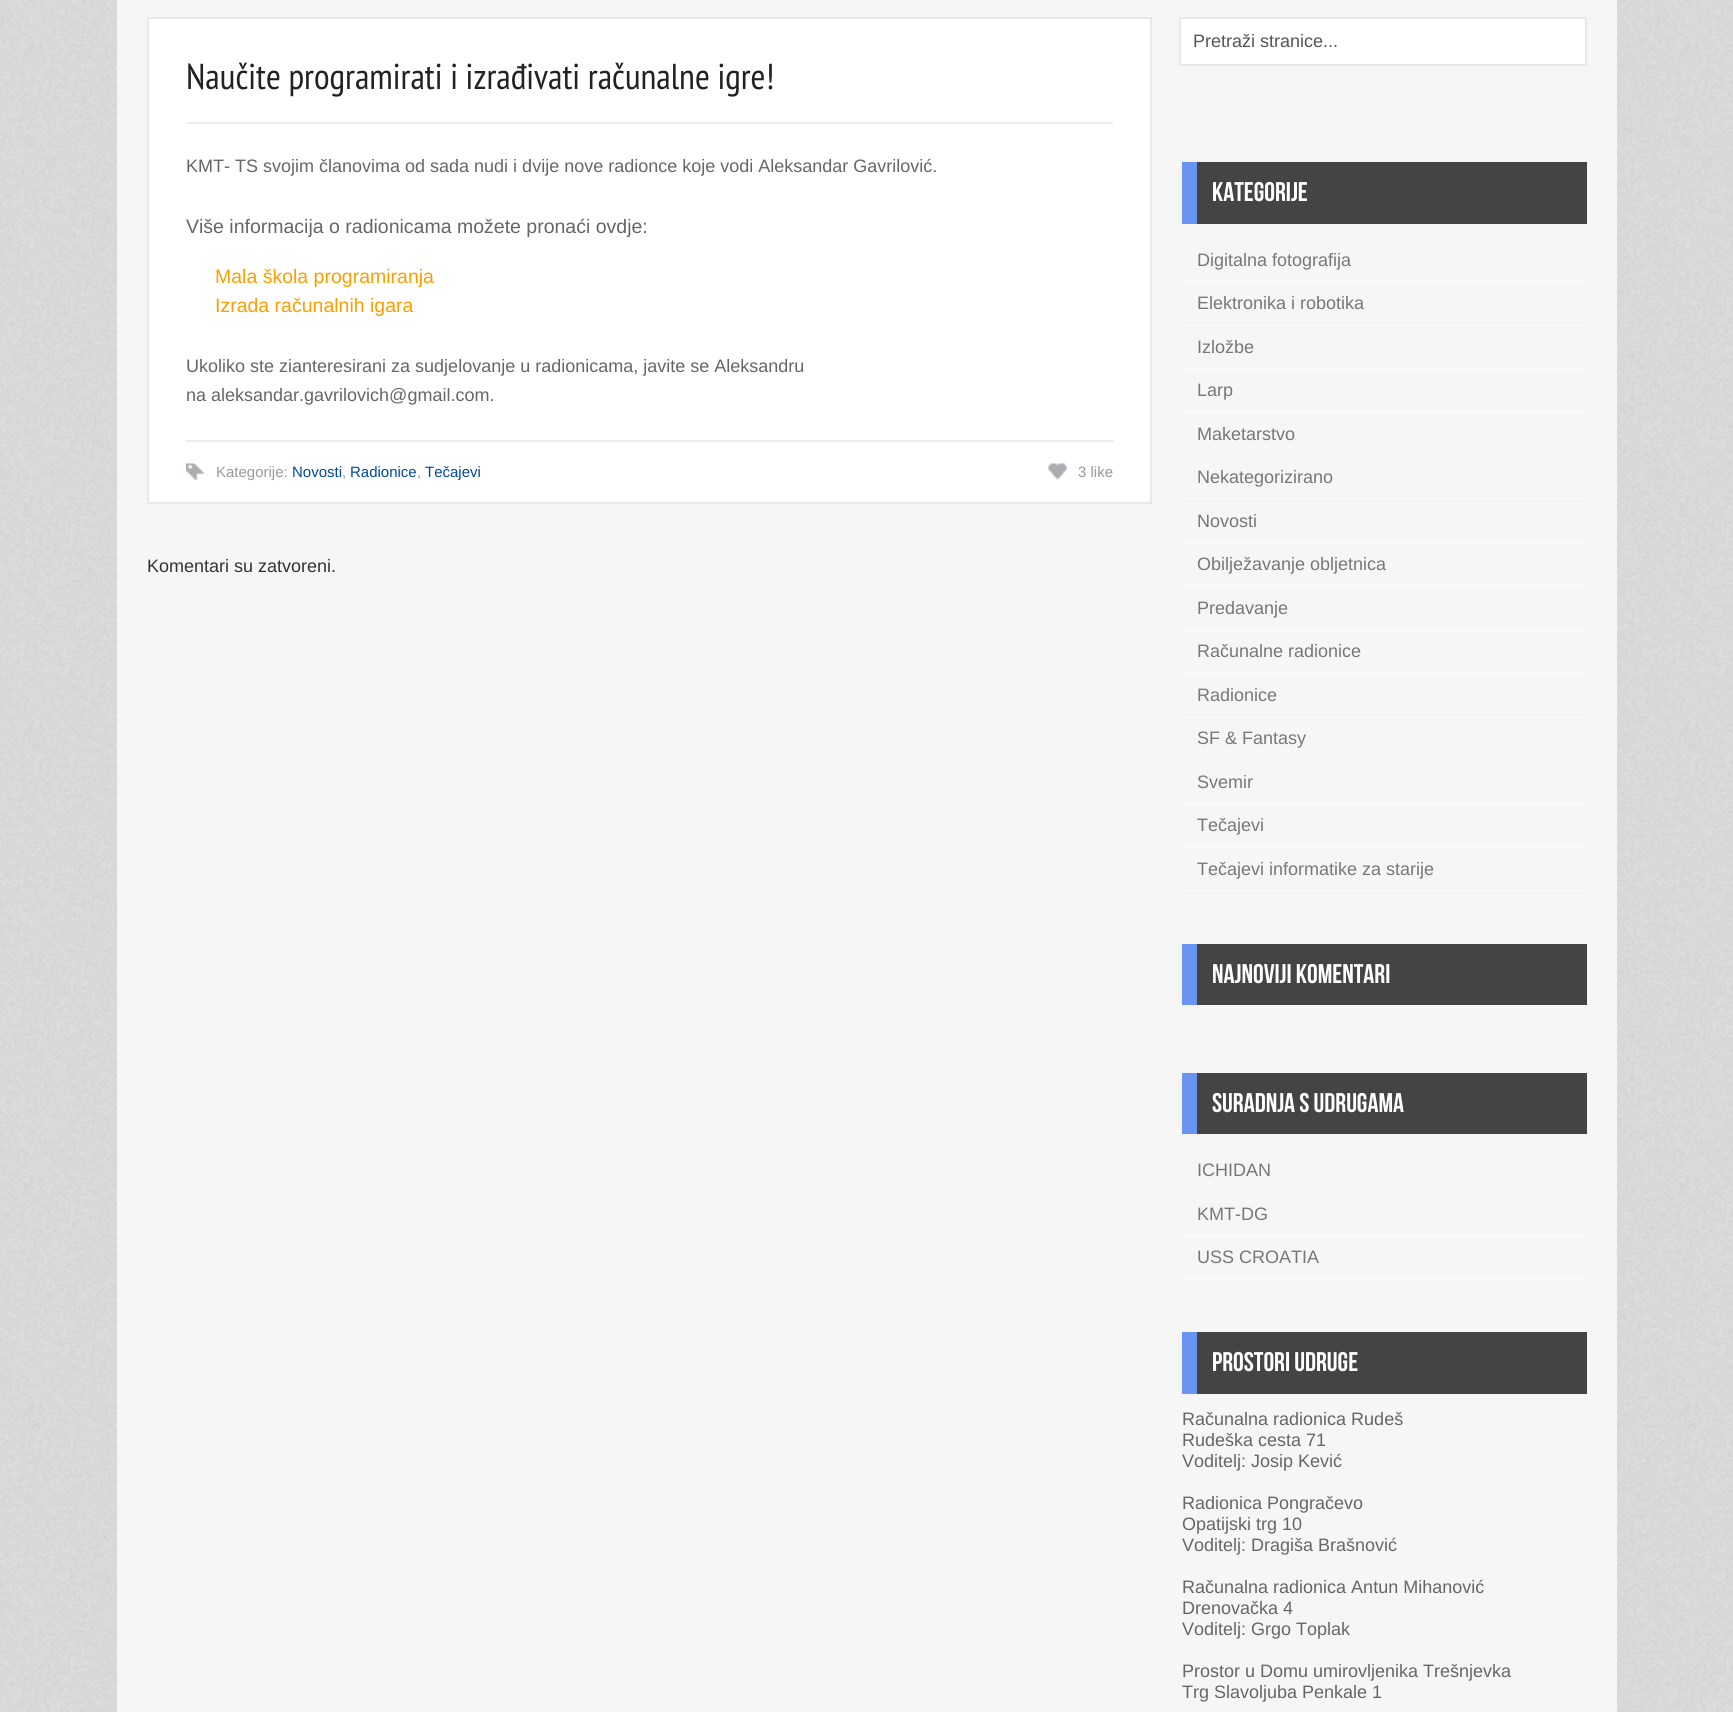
import math
import cairo

surface = cairo.ImageSurface(cairo.Format.RGB24, 1733, 1712)
ctx = cairo.Context(surface)
options = cairo.FontOptions()
options.set_hint_metrics(cairo.HintMetrics.OFF)
options.set_hint_style(cairo.HintStyle.NONE)
ctx.set_font_options(options)
ctx.set_miter_limit(4)


def ink(r, g, b):
    ctx.set_source_rgb(r / 255, g / 255, b / 255)


def write(x, y, s, family, size, color, bold=False, italic=False):
    ctx.select_font_face(family, cairo.FontSlant.ITALIC if italic else cairo.FontSlant.NORMAL, cairo.FontWeight.BOLD if bold else cairo.FontWeight.NORMAL)
    ctx.set_font_size(size)
    ink(*color)
    ctx.move_to(x, y)
    ctx.show_text(s)


def block(x, y, w, h, *color):
    ink(*color)
    ctx.rectangle(x, y, w, h)
    ctx.fill()


def paste(path, x, y, w, h):
    ctx.save()
    ctx.set_source_surface(cairo.ImageSurface.create_from_png(path), x, y)
    ctx.rectangle(x, y, w, h)
    ctx.fill()
    ctx.restore()


s1 = dict(family="PT Sans Narrow", size=36, color=(34, 34, 34))
s2 = dict(family="Liberation Sans", size=18, color=(102, 102, 102))
s3 = dict(family="Liberation Sans", size=19.5, color=(102, 102, 102))
s4 = dict(family="Liberation Sans", size=19.5, color=(255, 157, 0))
s5 = dict(family="Liberation Sans", size=15, color=(153, 153, 153))
s6 = dict(family="Liberation Sans", size=15, color=(0, 73, 159))
s7 = dict(family="Liberation Sans", size=18, color=(51, 51, 51))
s8 = dict(family="Liberation Sans", size=18, color=(85, 85, 85))
s9 = dict(family="Bebas Neue", size=27, color=(255, 255, 255))
s10 = dict(family="Liberation Sans", size=18, color=(119, 119, 119))

ink(255, 255, 255)
ctx.paint()
paste("pic1.png", 0, 0, 1733, 1712)
block(117, 0, 1500, 1712, 246, 246, 246)
ink(255, 255, 255)
ctx.rectangle(148, 18, 1003, 485)
ctx.fill_preserve()
ink(232, 232, 232)
ctx.stroke()
block(186, 122, 927, 2, 236, 236, 236)
write(186, 89, "Naučite programirati i izrađivati računalne igre!", **s1)
write(186, 172, "KMT- TS svojim članovima od sada nudi i dvije nove radionce koje vodi Aleksandar Gavrilović.", **s2)
write(186, 233, "Više informacija o radionicama možete pronaći ovdje:", **s3)
write(215, 283, "Mala škola programiranja", **s4)
write(215, 312, "Izrada računalnih igara", **s4)
write(186, 372, "Ukoliko ste zianteresirani za sudjelovanje u radionicama, javite se Aleksandru", **s2)
write(186, 401, "na aleksandar.gavrilovich@gmail.com.", **s2)
block(186, 440, 927, 2, 236, 236, 236)
paste("pic2.png", 186, 463, 18, 17)
write(216, 477, "Kategorije:", **s5)
write(292, 477, "Novosti", **s6)
write(342, 477, ",", **s5)
write(350, 477, "Radionice", **s6)
write(417, 477, ",", **s5)
write(425, 477, "Tečajevi", **s6)
paste("pic3.png", 1048, 463, 19, 17)
write(1078, 477, "3 like", **s5)
write(147, 572, "Komentari su zatvoreni.", **s7)
ink(255, 255, 255)
ctx.rectangle(1180, 18, 406, 47)
ctx.fill_preserve()
ink(232, 232, 232)
ctx.stroke()
write(1193, 47, "Pretraži stranice...", **s8)
block(1197, 162, 390, 62, 68, 68, 68)
block(1182, 162, 15, 62, 106, 148, 242)
write(1212, 201, "Kategorije", **s9)
block(1182, 281, 405, 2, 250, 250, 250)
write(1197, 266, "Digitalna fotografija", **s10)
block(1182, 324, 405, 2, 250, 250, 250)
write(1197, 309, "Elektronika i robotika", **s10)
block(1182, 368, 405, 2, 250, 250, 250)
write(1197, 353, "Izložbe", **s10)
block(1182, 411, 405, 2, 250, 250, 250)
write(1197, 396, "Larp", **s10)
block(1182, 455, 405, 2, 250, 250, 250)
write(1197, 440, "Maketarstvo", **s10)
block(1182, 498, 405, 2, 250, 250, 250)
write(1197, 483, "Nekategorizirano", **s10)
block(1182, 542, 405, 2, 250, 250, 250)
write(1197, 527, "Novosti", **s10)
block(1182, 585, 405, 2, 250, 250, 250)
write(1197, 570, "Obilježavanje obljetnica", **s10)
block(1182, 629, 405, 2, 250, 250, 250)
write(1197, 614, "Predavanje", **s10)
block(1182, 672, 405, 2, 250, 250, 250)
write(1197, 657, "Računalne radionice", **s10)
block(1182, 716, 405, 2, 250, 250, 250)
write(1197, 701, "Radionice", **s10)
block(1182, 759, 405, 2, 250, 250, 250)
write(1197, 744, "SF & Fantasy", **s10)
block(1182, 803, 405, 2, 250, 250, 250)
write(1197, 788, "Svemir", **s10)
block(1182, 846, 405, 2, 250, 250, 250)
write(1197, 831, "Tečajevi", **s10)
block(1182, 890, 405, 2, 250, 250, 250)
write(1197, 875, "Tečajevi informatike za starije", **s10)
block(1197, 944, 390, 61, 68, 68, 68)
block(1182, 944, 15, 61, 106, 148, 242)
write(1212, 983, "Najnoviji komentari", **s9)
block(1197, 1073, 390, 61, 68, 68, 68)
block(1182, 1073, 15, 61, 106, 148, 242)
write(1212, 1112, "Suradnja s udrugama", **s9)
block(1182, 1191, 405, 2, 250, 250, 250)
write(1197, 1176, "ICHIDAN", **s10)
block(1182, 1235, 405, 2, 250, 250, 250)
write(1197, 1220, "KMT-DG", **s10)
block(1182, 1278, 405, 2, 250, 250, 250)
write(1197, 1263, "USS CROATIA", **s10)
block(1197, 1332, 390, 62, 68, 68, 68)
block(1182, 1332, 15, 62, 106, 148, 242)
write(1212, 1371, "Prostori udruge", **s9)
write(1182, 1425, "Računalna radionica Rudeš", **s2)
write(1182, 1446, "Rudeška cesta 71", **s2)
write(1182, 1467, "Voditelj: Josip Kević", **s2)
write(1182, 1509, "Radionica Pongračevo", **s2)
write(1182, 1530, "Opatijski trg 10", **s2)
write(1182, 1551, "Voditelj: Dragiša Brašnović", **s2)
write(1182, 1593, "Računalna radionica Antun Mihanović", **s2)
write(1182, 1614, "Drenovačka 4", **s2)
write(1182, 1635, "Voditelj: Grgo Toplak", **s2)
write(1182, 1677, "Prostor u Domu umirovljenika Trešnjevka", **s2)
write(1182, 1698, "Trg Slavoljuba Penkale 1", **s2)
surface.write_to_png("screenshot.png")
